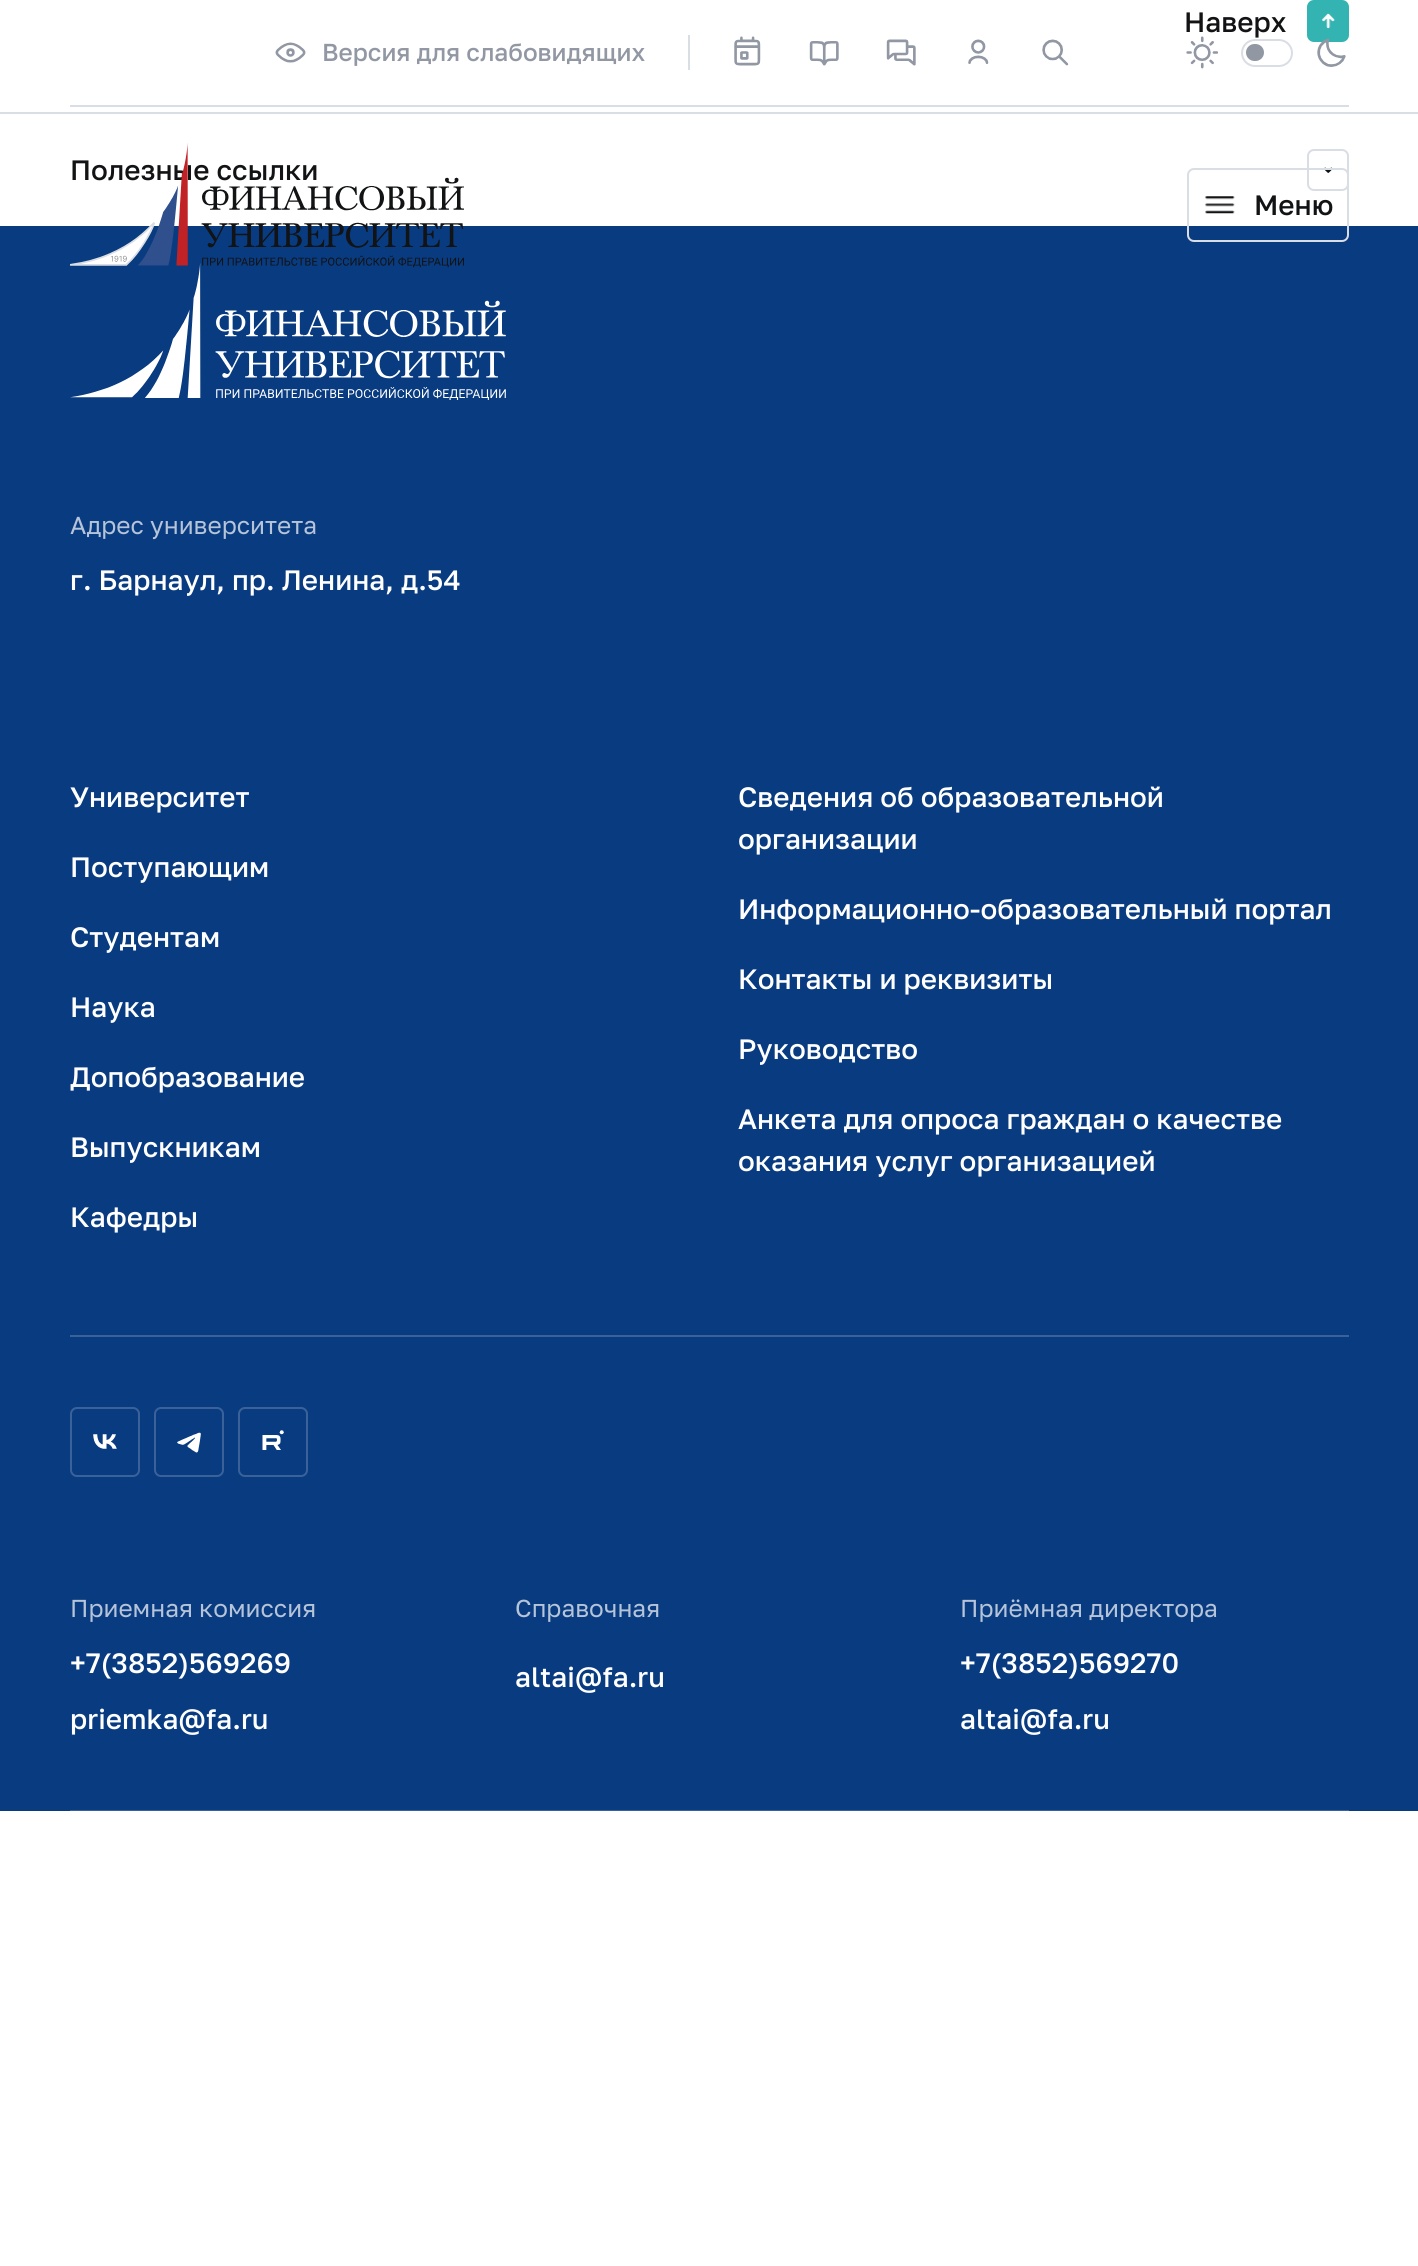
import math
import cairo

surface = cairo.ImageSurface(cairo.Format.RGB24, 1418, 2266)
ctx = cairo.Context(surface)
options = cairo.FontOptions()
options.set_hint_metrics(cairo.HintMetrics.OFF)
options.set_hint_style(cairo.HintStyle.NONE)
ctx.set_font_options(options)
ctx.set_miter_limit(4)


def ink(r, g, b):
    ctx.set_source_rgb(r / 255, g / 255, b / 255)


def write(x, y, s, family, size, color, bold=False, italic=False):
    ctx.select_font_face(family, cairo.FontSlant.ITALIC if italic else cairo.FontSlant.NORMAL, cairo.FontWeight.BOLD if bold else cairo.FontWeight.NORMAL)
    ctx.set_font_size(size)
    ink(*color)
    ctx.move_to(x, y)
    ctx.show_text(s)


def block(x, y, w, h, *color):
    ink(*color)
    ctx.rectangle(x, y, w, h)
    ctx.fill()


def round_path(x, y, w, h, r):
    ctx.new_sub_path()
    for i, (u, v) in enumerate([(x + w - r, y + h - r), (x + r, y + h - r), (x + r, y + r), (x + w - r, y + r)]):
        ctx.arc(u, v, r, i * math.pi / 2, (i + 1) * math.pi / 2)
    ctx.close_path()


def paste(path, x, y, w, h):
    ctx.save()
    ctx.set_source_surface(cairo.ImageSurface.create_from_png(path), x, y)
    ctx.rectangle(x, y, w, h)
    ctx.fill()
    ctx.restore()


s1 = dict(family="Golos Text Medium", size=28, color=(18, 19, 20))
s2 = dict(family="Golos Text Medium", size=24.5, color=(145, 151, 163))
s3 = dict(family="Golos Text", size=24.5, color=(181, 196, 217))
s4 = dict(family="Golos Text Medium", size=28, color=(255, 255, 255))

ink(255, 255, 255)
ctx.paint()
write(1184, 32, "Наверх", **s1)
ink(51, 179, 178)
round_path(1307, 0, 42, 42, 7)
ctx.fill()
paste("pic1.png", 1322, 13, 13, 16)
block(0, 112, 1418, 2, 217, 221, 228)
write(70, 180, "Полезные ссылки", **s1)
round_path(1308, 150, 40, 40, 6)
ink(217, 221, 228)
ctx.stroke()
paste("pic2.png", 1324, 167, 8, 6)
block(70, 105, 1279, 2, 217, 221, 228)
paste("pic3.png", 275, 42, 31, 21)
write(322, 61, "Версия для слабовидящих", **s2)
block(688, 35, 2, 35, 217, 221, 228)
paste("pic4.png", 734, 36, 27, 30)
paste("pic5.png", 809, 41, 30, 25)
paste("pic6.png", 886, 39, 30, 27)
paste("pic7.png", 968, 39, 21, 25)
paste("pic8.png", 1042, 39, 27, 27)
paste("pic9.png", 1186, 36, 33, 33)
round_path(1242, 40, 50, 26, 13)
ctx.stroke()
ink(145, 151, 163)
round_path(1246, 44, 18, 17, 8.5)
ctx.fill()
paste("pic10.png", 1317, 38, 29, 29)
block(0, 226, 1418, 1585, 9, 59, 128)
paste("pic13.png", 70, 263, 436, 137)
paste("pic11.png", 70, 143, 394, 125)
round_path(1188, 169, 160, 72, 6)
ink(217, 221, 228)
ctx.stroke()
paste("pic12.png", 1205, 196, 30, 18)
write(1254, 215, "Меню", **s1)
block(70, 1810, 1279, 1, 58, 98, 153)
block(70, 1335, 1279, 2, 58, 98, 153)
write(70, 534, "Адрес университета", **s3)
write(70, 590, "г. Барнаул, пр. Ленина, д.54", **s4)
write(70, 807, "Университет", **s4)
write(738, 807, "Сведения об образовательной", **s4)
write(738, 849, "организации", **s4)
write(70, 877, "Поступающим", **s4)
write(738, 919, "Информационно-образовательный портал", **s4)
write(70, 947, "Студентам", **s4)
write(738, 989, "Контакты и реквизиты", **s4)
write(70, 1017, "Наука", **s4)
write(738, 1059, "Руководство", **s4)
write(70, 1087, "Допобразование", **s4)
write(70, 1157, "Выпускникам", **s4)
write(738, 1129, "Анкета для опроса граждан о качестве", **s4)
write(738, 1171, "оказания услуг организацией", **s4)
write(70, 1227, "Кафедры", **s4)
round_path(71, 1408, 68, 68, 6)
ink(58, 98, 153)
ctx.stroke()
paste("pic14.png", 93, 1434, 24, 15)
round_path(155, 1408, 68, 68, 6)
ctx.stroke()
paste("pic15.png", 177, 1432, 24, 21)
round_path(239, 1408, 68, 68, 6)
ctx.stroke()
paste("pic16.png", 262, 1430, 22, 20)
write(70, 1617, "Приемная комиссия", **s3)
write(70, 1673, "+7(3852)569269", **s4)
write(70, 1729, "priemka@fa.ru", **s4)
write(515, 1617, "Справочная", **s3)
write(515, 1687, "altai@fa.ru", **s4)
write(960, 1617, "Приёмная директора", **s3)
write(960, 1673, "+7(3852)569270", **s4)
write(960, 1729, "altai@fa.ru", **s4)
surface.write_to_png("screenshot.png")
